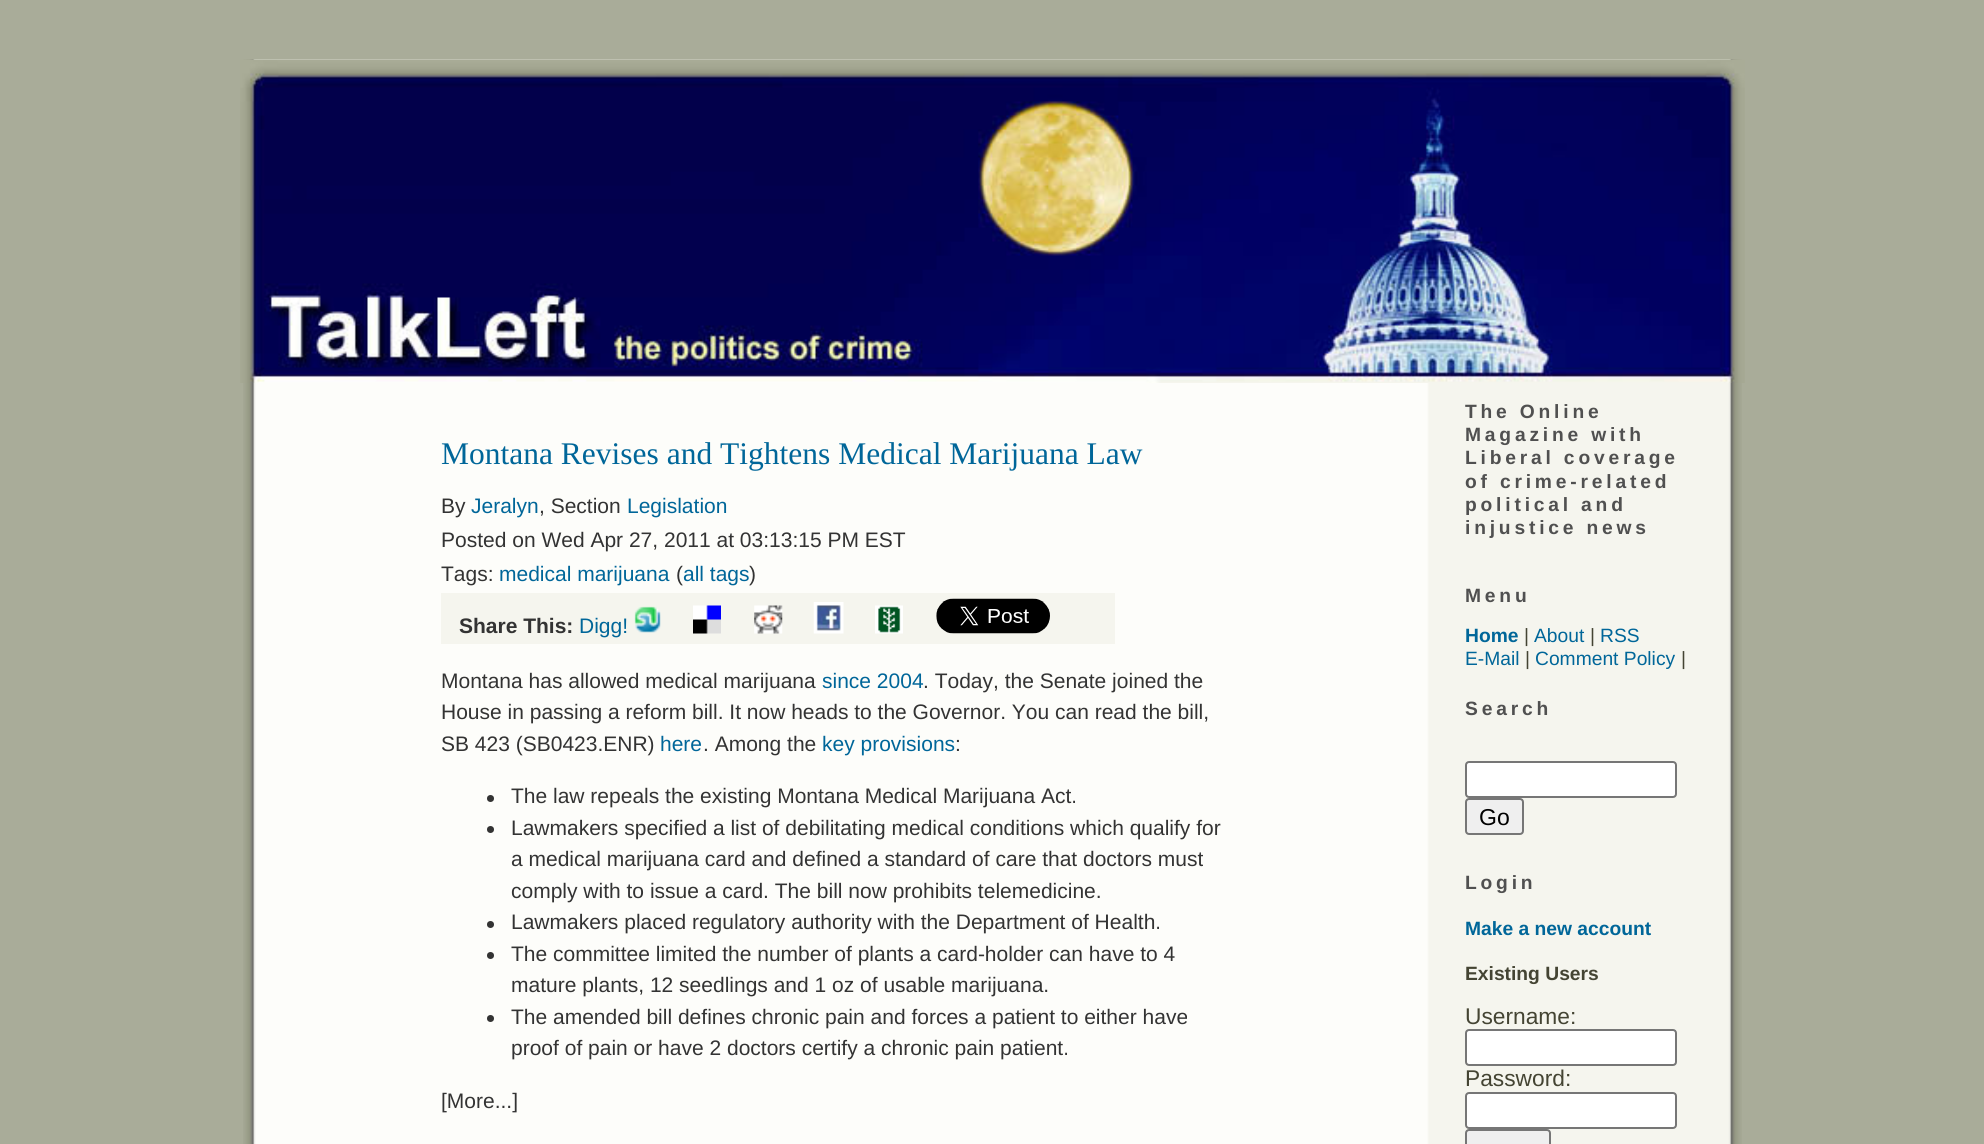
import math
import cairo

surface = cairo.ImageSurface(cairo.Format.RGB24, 1984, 1144)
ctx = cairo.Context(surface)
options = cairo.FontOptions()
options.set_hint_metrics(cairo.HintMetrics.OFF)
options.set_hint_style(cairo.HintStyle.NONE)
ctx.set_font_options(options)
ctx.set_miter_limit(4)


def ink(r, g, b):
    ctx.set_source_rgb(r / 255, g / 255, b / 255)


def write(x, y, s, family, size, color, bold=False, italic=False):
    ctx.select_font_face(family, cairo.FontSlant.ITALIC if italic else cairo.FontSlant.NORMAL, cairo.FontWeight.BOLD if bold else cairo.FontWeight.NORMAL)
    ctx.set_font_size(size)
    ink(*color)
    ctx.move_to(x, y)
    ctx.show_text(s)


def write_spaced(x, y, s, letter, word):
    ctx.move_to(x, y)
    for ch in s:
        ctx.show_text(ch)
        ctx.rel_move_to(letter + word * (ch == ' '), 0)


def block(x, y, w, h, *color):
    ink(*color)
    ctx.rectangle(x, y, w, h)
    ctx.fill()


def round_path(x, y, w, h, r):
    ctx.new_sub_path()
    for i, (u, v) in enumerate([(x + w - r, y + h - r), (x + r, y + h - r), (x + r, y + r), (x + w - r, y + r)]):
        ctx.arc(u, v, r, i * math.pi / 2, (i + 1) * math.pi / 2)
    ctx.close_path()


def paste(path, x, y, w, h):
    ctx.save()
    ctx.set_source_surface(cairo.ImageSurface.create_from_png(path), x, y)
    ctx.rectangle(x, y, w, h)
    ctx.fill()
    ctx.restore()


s1 = dict(family="Liberation Serif", size=31.5, color=(0, 102, 153))
s2 = dict(family="Liberation Sans", size=21, color=(51, 51, 51))
s3 = dict(family="Liberation Sans", size=21, color=(0, 102, 153))
s4 = dict(family="Liberation Sans", size=21, color=(51, 51, 51), bold=True)
s5 = dict(family="Liberation Sans", size=19.25, color=(0, 102, 153), bold=True)
s6 = dict(family="Liberation Sans", size=19.25, color=(68, 68, 51))
s7 = dict(family="Liberation Sans", size=19.25, color=(0, 102, 153))
s8 = dict(family="Liberation Sans", size=23, color=(0, 0, 0))
s9 = dict(family="Liberation Sans", size=19.25, color=(68, 68, 51), bold=True)
s10 = dict(family="Liberation Sans", size=22.75, color=(68, 68, 51))

ink(169, 172, 153)
ctx.paint()
paste("pic1.png", 243, 59, 1499, 1085)
paste("pic2.png", 240, 59, 1505, 324)
write(441, 464, "Montana Revises and Tightens Medical Marijuana Law", **s1)
write(441, 513, "By", **s2)
write(471, 513, "Jeralyn", **s3)
write(539, 513, ", Section", **s2)
write(627, 513, "Legislation", **s3)
write(441, 547, "Posted on Wed Apr 27, 2011 at 03:13:15 PM EST", **s2)
write(441, 581, "Tags:", **s2)
write(499, 581, "medical marijuana", **s3)
write(676, 581, "(", **s2)
write(683, 581, "all tags", **s3)
write(749, 581, ")", **s2)
block(441, 593, 674, 51, 245, 245, 238)
write(459, 633, "Share This:", **s4)
write(579, 633, "Digg!", **s3)
paste("pic3.png", 634, 606, 27, 27)
paste("pic4.png", 693, 605, 28, 29)
paste("pic5.png", 754, 605, 29, 29)
paste("pic6.png", 813, 602, 31, 32)
paste("pic7.png", 875, 605, 28, 29)
paste("pic8.png", 936, 598, 114, 36)
write(441, 688, "Montana has allowed medical marijuana", **s2)
write(822, 688, "since 2004", **s3)
write(923, 688, ". Today, the Senate joined the", **s2)
write(441, 719, "House in passing a reform bill. It now heads to the Governor. You can read the bill,", **s2)
write(441, 751, "SB 423 (SB0423.ENR)", **s2)
write(660, 751, "here", **s3)
write(703, 751, ". Among the", **s2)
write(822, 751, "key provisions", **s3)
write(955, 751, ":", **s2)
ctx.new_path()
ctx.arc(490.5, 798.5, 3.5, 0, 2 * math.pi)
ctx.fill()
write(511, 803, "The law repeals the existing Montana Medical Marijuana Act.", **s2)
ctx.new_path()
ctx.arc(490.5, 829.5, 3.5, 0, 2 * math.pi)
ctx.fill()
write(511, 835, "Lawmakers specified a list of debilitating medical conditions which qualify for", **s2)
write(511, 866, "a medical marijuana card and defined a standard of care that doctors must", **s2)
write(511, 898, "comply with to issue a card. The bill now prohibits telemedicine.", **s2)
ctx.new_path()
ctx.arc(490.5, 924.5, 3.5, 0, 2 * math.pi)
ctx.fill()
write(511, 929, "Lawmakers placed regulatory authority with the Department of Health.", **s2)
ctx.new_path()
ctx.arc(490.5, 955.5, 3.5, 0, 2 * math.pi)
ctx.fill()
write(511, 961, "The committee limited the number of plants a card-holder can have to 4", **s2)
write(511, 992, "mature plants, 12 seedlings and 1 oz of usable marijuana.", **s2)
ctx.new_path()
ctx.arc(490.5, 1018.5, 3.5, 0, 2 * math.pi)
ctx.fill()
write(511, 1024, "The amended bill defines chronic pain and forces a patient to either have", **s2)
write(511, 1055, "proof of pain or have 2 doctors certify a chronic pain patient.", **s2)
write(441, 1108, "[More...]", **s2)
ctx.select_font_face("Liberation Sans", cairo.FontSlant.NORMAL, cairo.FontWeight.BOLD)
ctx.set_font_size(19.25)
ink(80, 80, 80)
write_spaced(1465, 418, "The Online", 3.8, 0)
write_spaced(1465, 441, "Magazine with", 3.8, 0)
write_spaced(1465, 464, "Liberal coverage", 3.8, 0)
write_spaced(1465, 488, "of crime-related", 3.8, 0)
write_spaced(1465, 511, "political and", 3.8, 0)
write_spaced(1465, 534, "injustice news", 3.8, 0)
write_spaced(1465, 602, "Menu", 3.8, 0)
write(1465, 642, "Home", **s5)
write(1524, 642, "|", **s6)
write(1534, 642, "About", **s7)
write(1590, 642, "|", **s6)
write(1600, 642, "RSS", **s7)
write(1465, 665, "E-Mail", **s7)
write(1525, 665, "|", **s6)
write(1535, 665, "Comment Policy", **s7)
write(1681, 665, "|", **s6)
ctx.select_font_face("Liberation Sans", cairo.FontSlant.NORMAL, cairo.FontWeight.BOLD)
ink(80, 80, 80)
write_spaced(1465, 715, "Search", 3.8, 0)
ink(255, 255, 255)
round_path(1466, 762, 210, 35, 3)
ctx.fill_preserve()
ink(118, 118, 118)
ctx.stroke()
ink(239, 239, 239)
round_path(1466, 799, 57, 35, 3)
ctx.fill_preserve()
ink(118, 118, 118)
ctx.stroke()
write(1479, 825, "Go", **s8)
ctx.select_font_face("Liberation Sans", cairo.FontSlant.NORMAL, cairo.FontWeight.BOLD)
ctx.set_font_size(19.25)
ink(80, 80, 80)
write_spaced(1465, 889, "Login", 3.8, 0)
write(1465, 935, "Make a new account", **s5)
write(1465, 980, "Existing Users", **s9)
write(1465, 1024, "Username:", **s10)
ink(255, 255, 255)
round_path(1466, 1030, 210, 35, 3)
ctx.fill_preserve()
ink(118, 118, 118)
ctx.stroke()
write(1465, 1086, "Password:", **s10)
ink(255, 255, 255)
round_path(1466, 1093, 210, 35, 3)
ctx.fill_preserve()
ink(118, 118, 118)
ctx.stroke()
ink(239, 239, 239)
round_path(1466, 1130, 84, 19, 3)
ctx.fill_preserve()
ink(118, 118, 118)
ctx.stroke()
surface.write_to_png("screenshot.png")
